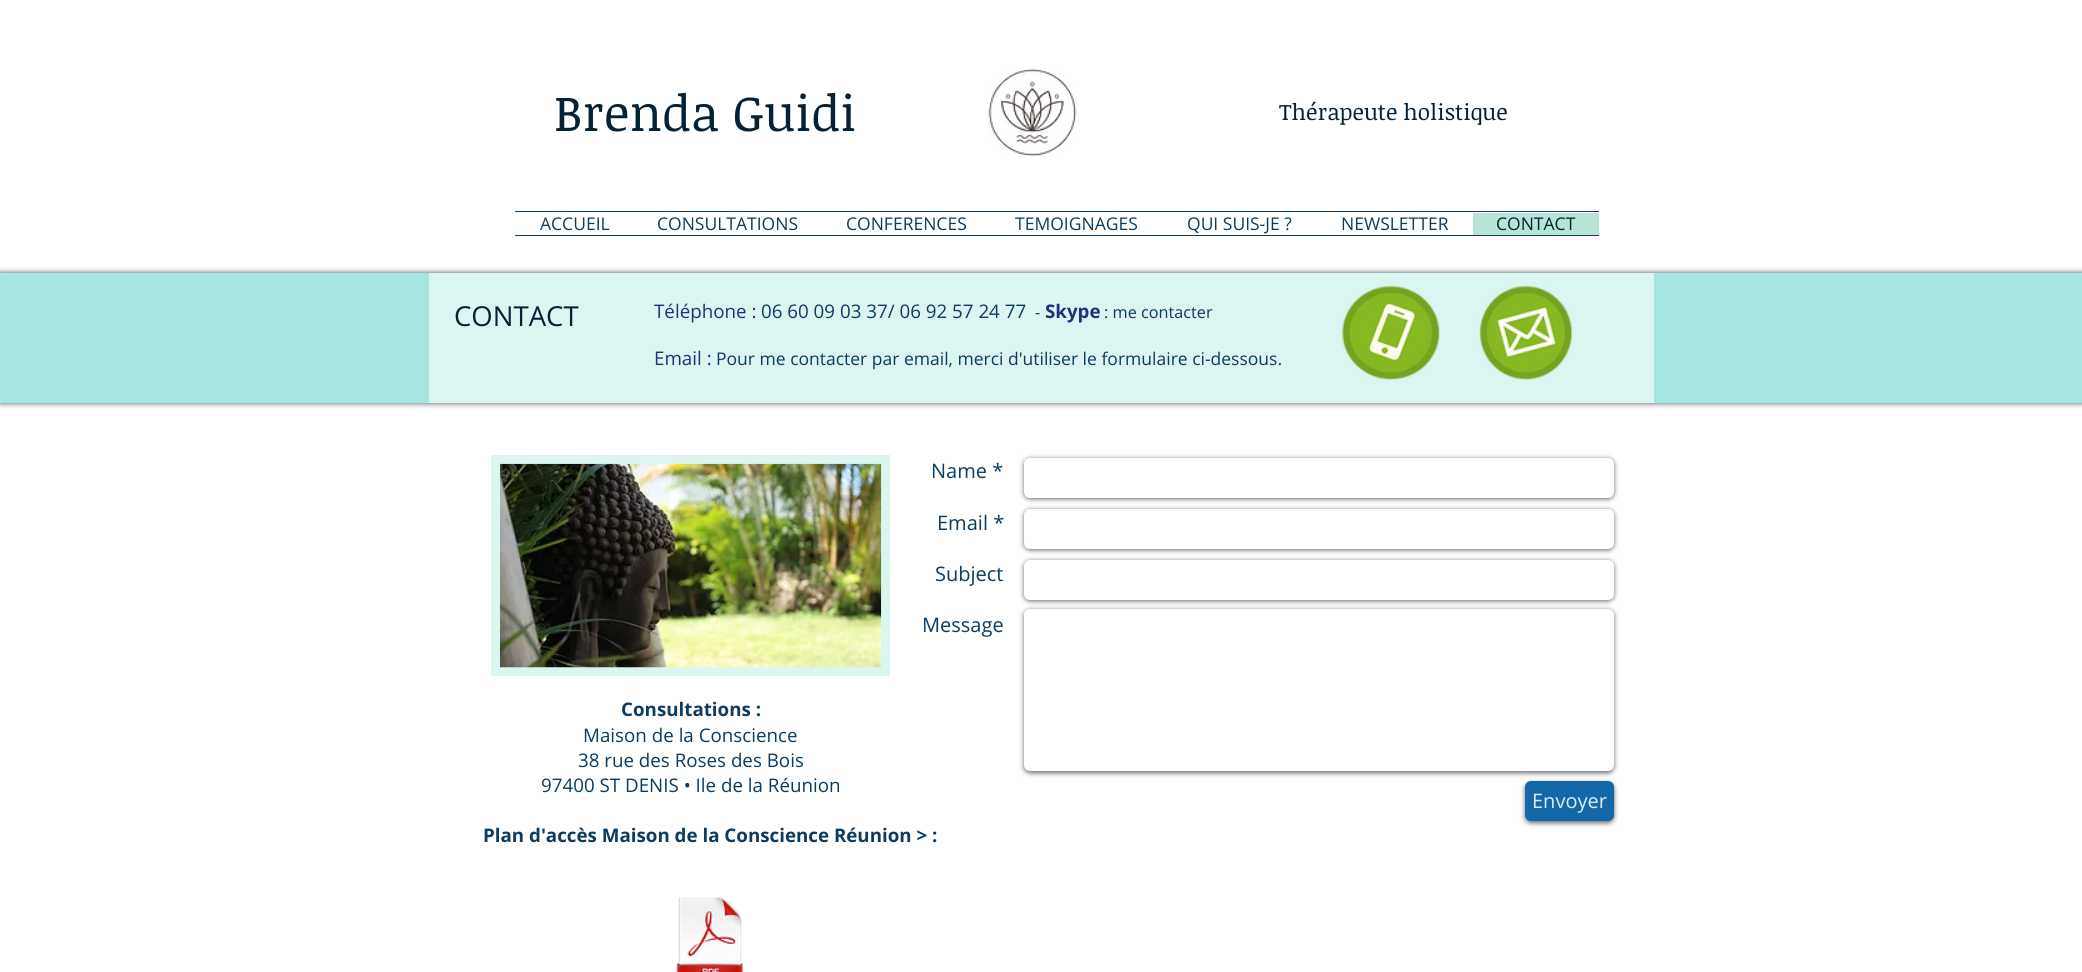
import math
import cairo

surface = cairo.ImageSurface(cairo.Format.RGB24, 2082, 972)
ctx = cairo.Context(surface)
options = cairo.FontOptions()
options.set_hint_metrics(cairo.HintMetrics.OFF)
options.set_hint_style(cairo.HintStyle.NONE)
ctx.set_font_options(options)
ctx.set_miter_limit(4)


def ink(r, g, b):
    ctx.set_source_rgb(r / 255, g / 255, b / 255)


def write(x, y, s, family, size, color, bold=False, italic=False):
    ctx.select_font_face(family, cairo.FontSlant.ITALIC if italic else cairo.FontSlant.NORMAL, cairo.FontWeight.BOLD if bold else cairo.FontWeight.NORMAL)
    ctx.set_font_size(size)
    ink(*color)
    ctx.move_to(x, y)
    ctx.show_text(s)


def block(x, y, w, h, *color):
    ink(*color)
    ctx.rectangle(x, y, w, h)
    ctx.fill()


def round_path(x, y, w, h, r):
    ctx.new_sub_path()
    for i, (u, v) in enumerate([(x + w - r, y + h - r), (x + r, y + h - r), (x + r, y + r), (x + w - r, y + r)]):
        ctx.arc(u, v, r, i * math.pi / 2, (i + 1) * math.pi / 2)
    ctx.close_path()


def blur_box(x, y, w, h, r, blur, alpha):
    ctx.push_group_with_content(cairo.Content.ALPHA)
    ctx.set_operator(cairo.Operator.SOURCE)
    for i in range(15, -16, -2):
        e = blur * i / 6
        if min(w, h) + 2 * e > 0:
            ctx.set_source_rgba(0, 0, 0, alpha * math.erfc((i - 1) / 8.5) / 2)
            round_path(x - e, y - e, w + 2 * e, h + 2 * e, max(0, min(r + e + blur * .6, min(w, h) / 2 + e)))
            ctx.fill()
    ctx.mask(ctx.pop_group())


def paste(path, x, y, w, h):
    ctx.save()
    ctx.set_source_surface(cairo.ImageSurface.create_from_png(path), x, y)
    ctx.rectangle(x, y, w, h)
    ctx.fill()
    ctx.restore()


s1 = dict(family="Noticia Text", size=50, color=(6, 33, 52))
s2 = dict(family="Noticia Text", size=22.5, color=(6, 33, 52))
s3 = dict(family="Open Sans", size=17.5, color=(12, 60, 96))
s4 = dict(family="Open Sans", size=17.5, color=(6, 33, 52))
s5 = dict(family="Open Sans", size=27.5, color=(6, 33, 52))
s6 = dict(family="Open Sans", size=18.75, color=(28, 50, 127))
s7 = dict(family="Open Sans", size=18.75, color=(12, 60, 96))
s8 = dict(family="Open Sans", size=16.25, color=(12, 60, 96))
s9 = dict(family="Open Sans", size=18.75, color=(28, 50, 127), bold=True)
s10 = dict(family="Open Sans", size=20, color=(12, 60, 96))
s11 = dict(family="Open Sans", size=20, color=(218, 237, 255))
s12 = dict(family="Open Sans", size=18.75, color=(12, 60, 96), bold=True)

ink(255, 255, 255)
ctx.paint()
write(554, 131, "Brenda Guidi", **s1)
paste("pic1.png", 988, 68, 89, 89)
write(1279, 120, "Thérapeute holistique", **s2)
block(515, 211, 1084, 1, 12, 60, 96)
block(515, 235, 1084, 1, 12, 60, 96)
write(540, 230, "ACCUEIL", **s3)
write(657, 230, "CONSULTATIONS", **s3)
write(846, 230, "CONFERENCES", **s3)
write(1015, 230, "TEMOIGNAGES", **s3)
write(1187, 230, "QUI SUIS-JE ?", **s3)
write(1341, 230, "NEWSLETTER", **s3)
block(1473, 213, 126, 22, 182, 229, 213)
write(1496, 230, "CONTACT", **s4)
ink(0, 0, 0)
blur_box(0, 273, 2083, 130, 0, 3, 0.7)
block(0, 273, 2082, 130, 164, 229, 224)
block(429, 273, 1225, 130, 219, 245, 240)
write(454, 326, "CONTACT", **s5)
write(654, 318, "Téléphone :", **s6)
write(761, 318, "06 60 09 03 37/ 06 92 57 24 77", **s7)
write(1035, 318, "-", **s8)
write(1045, 318, "Skype", **s9)
write(1104, 318, ": me contacter", **s8)
write(654, 365, "Email :", **s6)
write(716, 365, "Pour me contacter par email, merci d'utiliser le formulaire ci-dessous.", **s3)
paste("pic2.png", 1341, 285, 99, 95)
paste("pic3.png", 1479, 285, 94, 95)
block(491, 455, 399, 221, 219, 245, 240)
paste("pic4.png", 500, 463, 382, 205)
write(931, 478, "Name *", **s10)
ink(0, 0, 0)
blur_box(1024, 459, 590, 40, 6, 2.5, 0.6)
ink(255, 255, 255)
round_path(1024, 458, 590, 40, 6)
ctx.fill()
write(937, 530, "Email *", **s10)
ink(0, 0, 0)
blur_box(1024, 510, 590, 40, 6, 2.5, 0.6)
ink(255, 255, 255)
round_path(1024, 509, 590, 40, 6)
ctx.fill()
write(935, 581, "Subject", **s10)
ink(0, 0, 0)
blur_box(1024, 561, 590, 40, 6, 2.5, 0.6)
ink(255, 255, 255)
round_path(1024, 560, 590, 40, 6)
ctx.fill()
write(922, 632, "Message", **s10)
ink(0, 0, 0)
blur_box(1024, 610, 590, 163, 6, 2.5, 0.6)
ink(255, 255, 255)
round_path(1024, 609, 590, 162, 6)
ctx.fill()
ink(0, 0, 0)
blur_box(1525, 783, 89, 40, 6, 2.5, 0.6)
ink(20, 104, 168)
round_path(1525, 781, 89, 40, 6)
ctx.fill()
write(1532, 808, "Envoyer", **s11)
write(621, 716, "Consultations :", **s12)
write(583, 742, "Maison de la Conscience", **s7)
write(578, 767, "38 rue des Roses des Bois", **s7)
write(541, 792, "97400 ST DENIS • Ile de la Réunion", **s7)
write(483, 842, "Plan d'accès Maison de la Conscience Réunion > :", **s12)
paste("pic5.png", 676, 897, 67, 75)
surface.write_to_png("screenshot.png")
